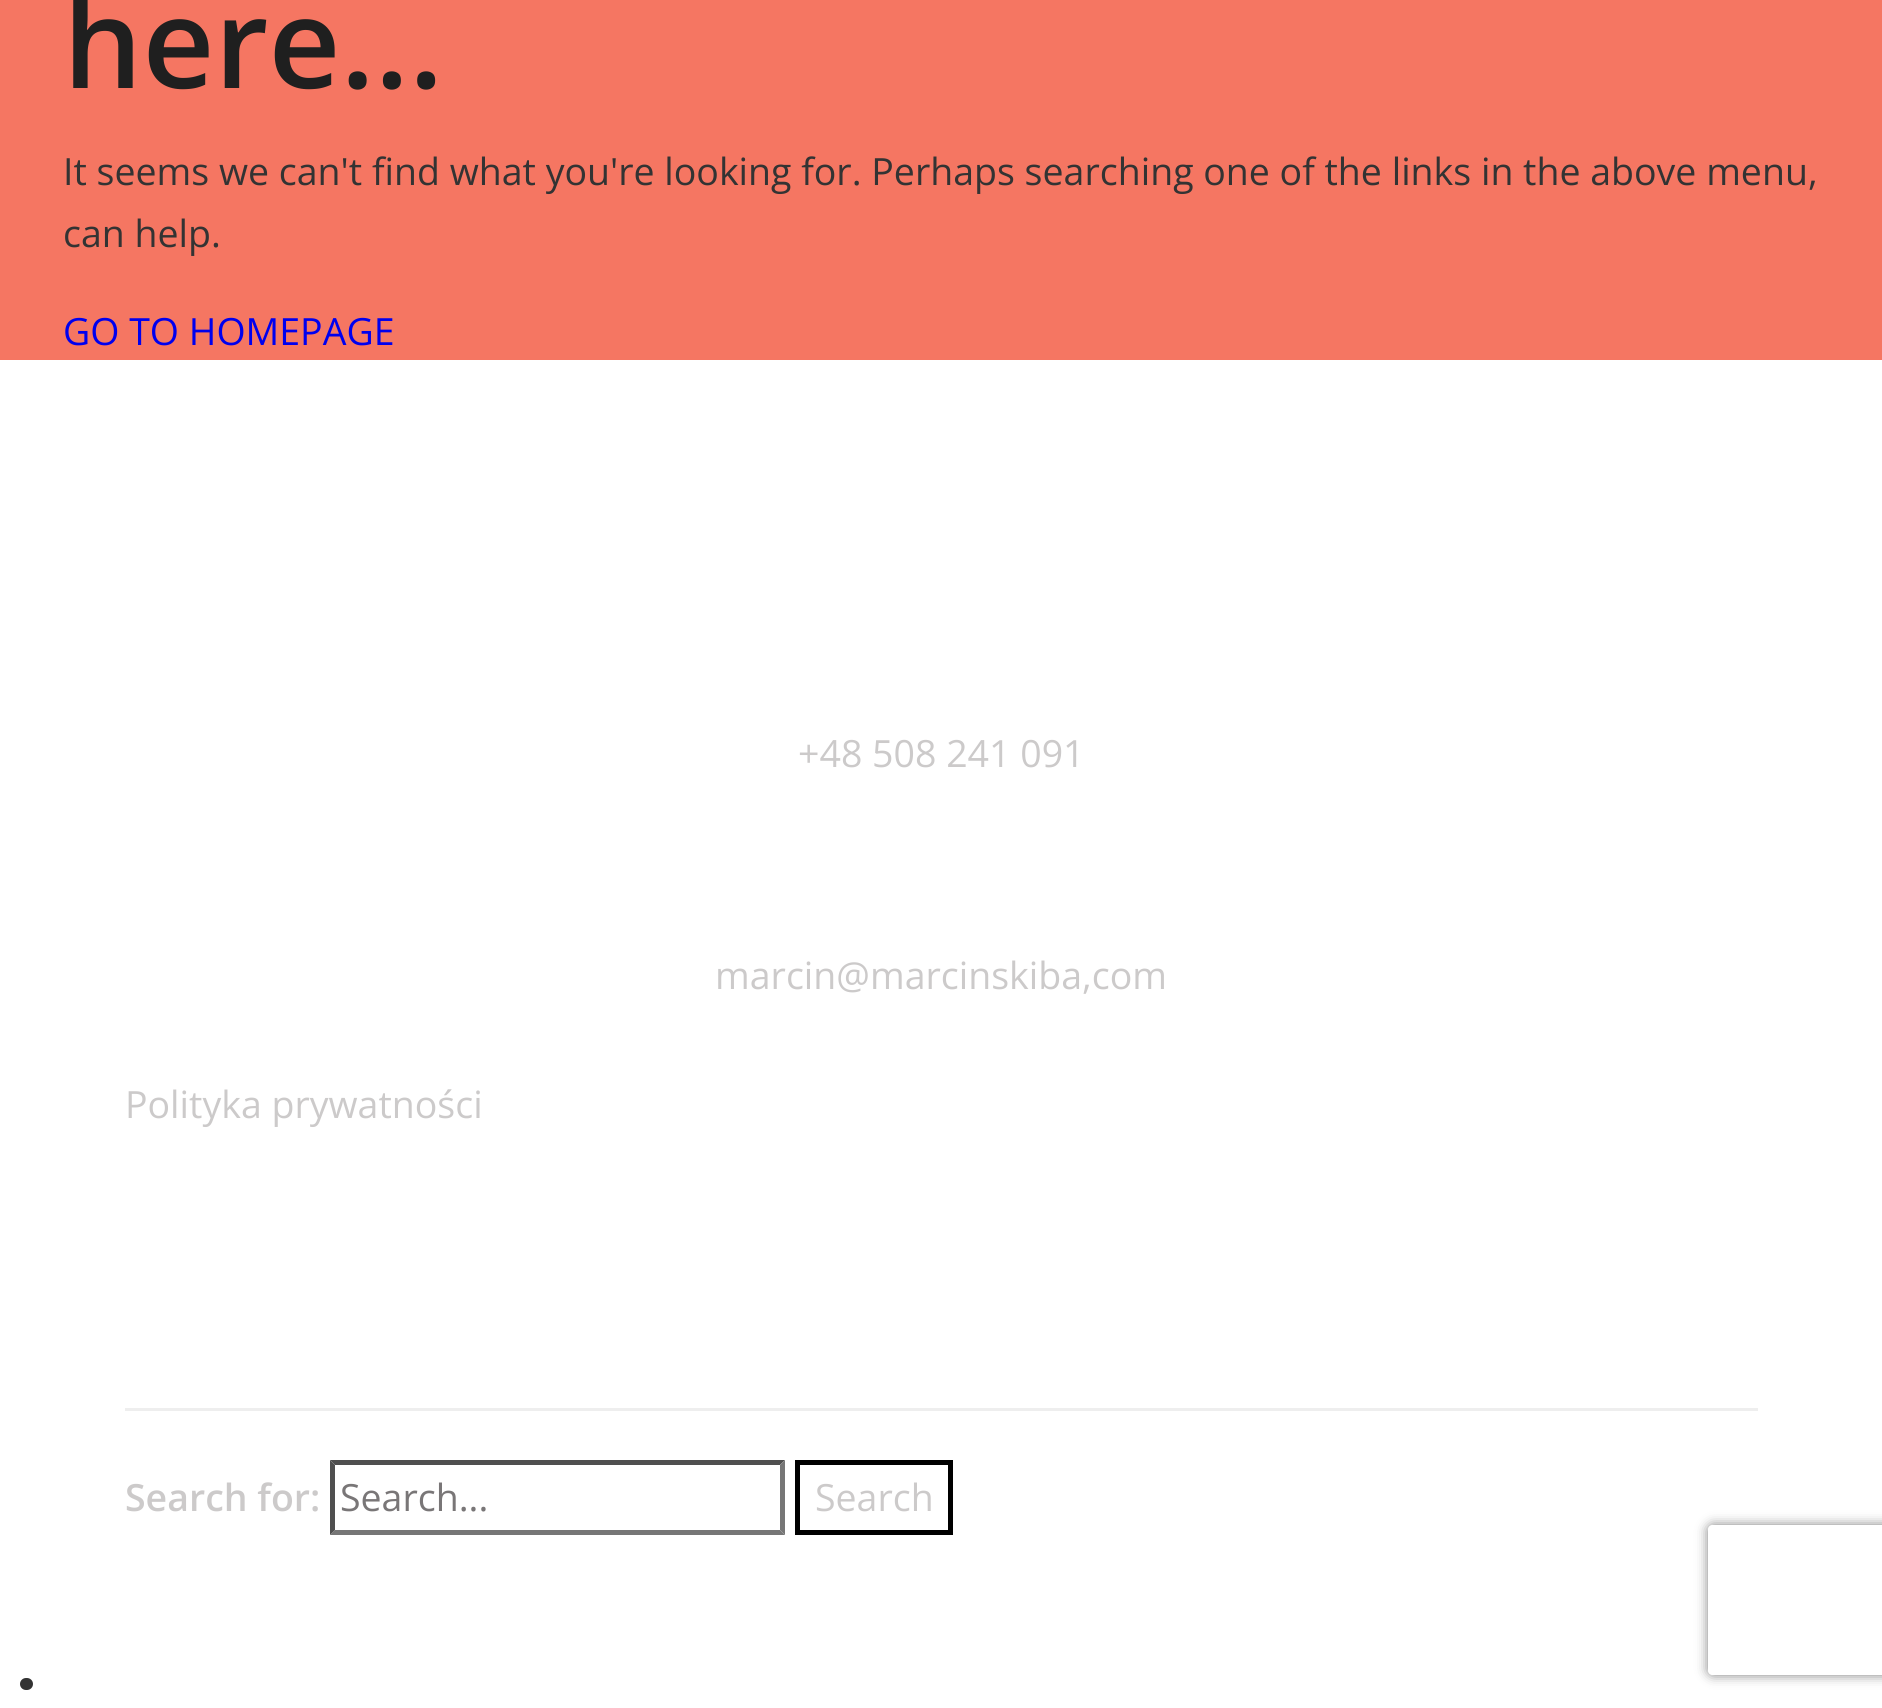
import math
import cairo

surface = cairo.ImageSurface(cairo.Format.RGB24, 1882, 1708)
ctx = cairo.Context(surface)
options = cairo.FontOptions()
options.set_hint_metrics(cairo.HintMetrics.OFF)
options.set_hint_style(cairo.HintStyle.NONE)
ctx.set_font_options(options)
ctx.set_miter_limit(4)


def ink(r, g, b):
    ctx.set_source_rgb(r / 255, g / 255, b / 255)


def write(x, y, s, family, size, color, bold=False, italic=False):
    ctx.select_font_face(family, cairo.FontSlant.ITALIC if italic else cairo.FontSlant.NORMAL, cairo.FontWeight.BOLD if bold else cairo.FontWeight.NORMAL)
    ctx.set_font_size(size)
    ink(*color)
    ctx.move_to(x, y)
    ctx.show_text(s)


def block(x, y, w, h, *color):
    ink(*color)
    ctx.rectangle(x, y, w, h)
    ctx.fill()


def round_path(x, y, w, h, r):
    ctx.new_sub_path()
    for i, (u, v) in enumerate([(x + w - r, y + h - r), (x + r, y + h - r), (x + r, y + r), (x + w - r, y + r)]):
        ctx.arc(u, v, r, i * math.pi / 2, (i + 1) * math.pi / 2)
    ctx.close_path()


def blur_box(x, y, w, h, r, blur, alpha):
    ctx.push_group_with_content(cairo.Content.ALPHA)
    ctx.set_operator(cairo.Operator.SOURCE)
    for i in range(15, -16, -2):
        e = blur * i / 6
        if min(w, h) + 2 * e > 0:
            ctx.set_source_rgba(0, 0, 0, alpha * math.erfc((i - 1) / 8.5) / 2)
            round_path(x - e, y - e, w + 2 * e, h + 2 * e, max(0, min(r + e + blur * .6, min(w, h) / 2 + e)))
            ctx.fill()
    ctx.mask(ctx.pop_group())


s1 = dict(family="Open Sans SemiBold", size=125, color=(31, 31, 31))
s2 = dict(family="Open Sans", size=37.5, color=(51, 51, 51))
s3 = dict(family="Open Sans", size=37.5, color=(0, 0, 238))
s4 = dict(family="Open Sans", size=37.5, color=(204, 202, 202))
s5 = dict(family="Open Sans SemiBold", size=37.5, color=(204, 202, 202))
s6 = dict(family="Open Sans", size=37.5, color=(121, 118, 119))

ink(255, 255, 255)
ctx.paint()
block(0, 0, 1882, 360, 245, 118, 98)
write(63, 88, "here...", **s1)
write(63, 185, "It seems we can't find what you're looking for. Perhaps searching one of the links in the above menu,", **s2)
write(63, 247, "can help.", **s2)
write(63, 345, "GO TO HOMEPAGE", **s3)
write(798, 767, "+48 508 241 091", **s4)
write(715, 989, "marcin@marcinskiba,com", **s4)
write(125, 1118, "Polityka prywatności", **s4)
block(125, 1408, 1633, 3, 238, 238, 238)
write(125, 1511, "Search for:", **s5)
ink(79, 79, 79)
ctx.new_path()
ctx.move_to(330, 1460)
ctx.line_to(785, 1460)
ctx.line_to(780, 1465)
ctx.line_to(335, 1465)
ctx.close_path()
ctx.fill()
ink(118, 118, 118)
ctx.new_path()
ctx.move_to(785, 1460)
ctx.line_to(785, 1535)
ctx.line_to(780, 1530)
ctx.line_to(780, 1465)
ctx.close_path()
ctx.fill()
ctx.new_path()
ctx.move_to(785, 1535)
ctx.line_to(330, 1535)
ctx.line_to(335, 1530)
ctx.line_to(780, 1530)
ctx.close_path()
ctx.fill()
ink(79, 79, 79)
ctx.new_path()
ctx.move_to(330, 1535)
ctx.line_to(330, 1460)
ctx.line_to(335, 1465)
ctx.line_to(335, 1530)
ctx.close_path()
ctx.fill()
write(340, 1511, "Search...", **s6)
ctx.rectangle(797.5, 1462.5, 153, 70)
ink(0, 0, 0)
ctx.set_line_width(5)
ctx.stroke()
write(815, 1511, "Search", **s4)
ink(51, 51, 51)
round_path(20, 1678, 13, 12, 6)
ctx.fill()
ctx.save()
ctx.set_fill_rule(cairo.FillRule.EVEN_ODD)
ctx.new_path()
ctx.move_to(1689, 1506)
ctx.line_to(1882, 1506)
ctx.line_to(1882, 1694)
ctx.line_to(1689, 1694)
ctx.close_path()
ctx.move_to(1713, 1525)
ctx.line_to(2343, 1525)
ctx.curve_to(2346, 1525, 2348, 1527, 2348, 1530)
ctx.line_to(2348, 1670)
ctx.curve_to(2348, 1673, 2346, 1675, 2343, 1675)
ctx.line_to(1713, 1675)
ctx.curve_to(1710, 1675, 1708, 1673, 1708, 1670)
ctx.line_to(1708, 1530)
ctx.curve_to(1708, 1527, 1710, 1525, 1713, 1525)
ctx.close_path()
ctx.clip()
ink(128, 128, 128)
blur_box(1708, 1525, 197, 150, 5, 6, 1)
ctx.restore()
surface.write_to_png("screenshot.png")
